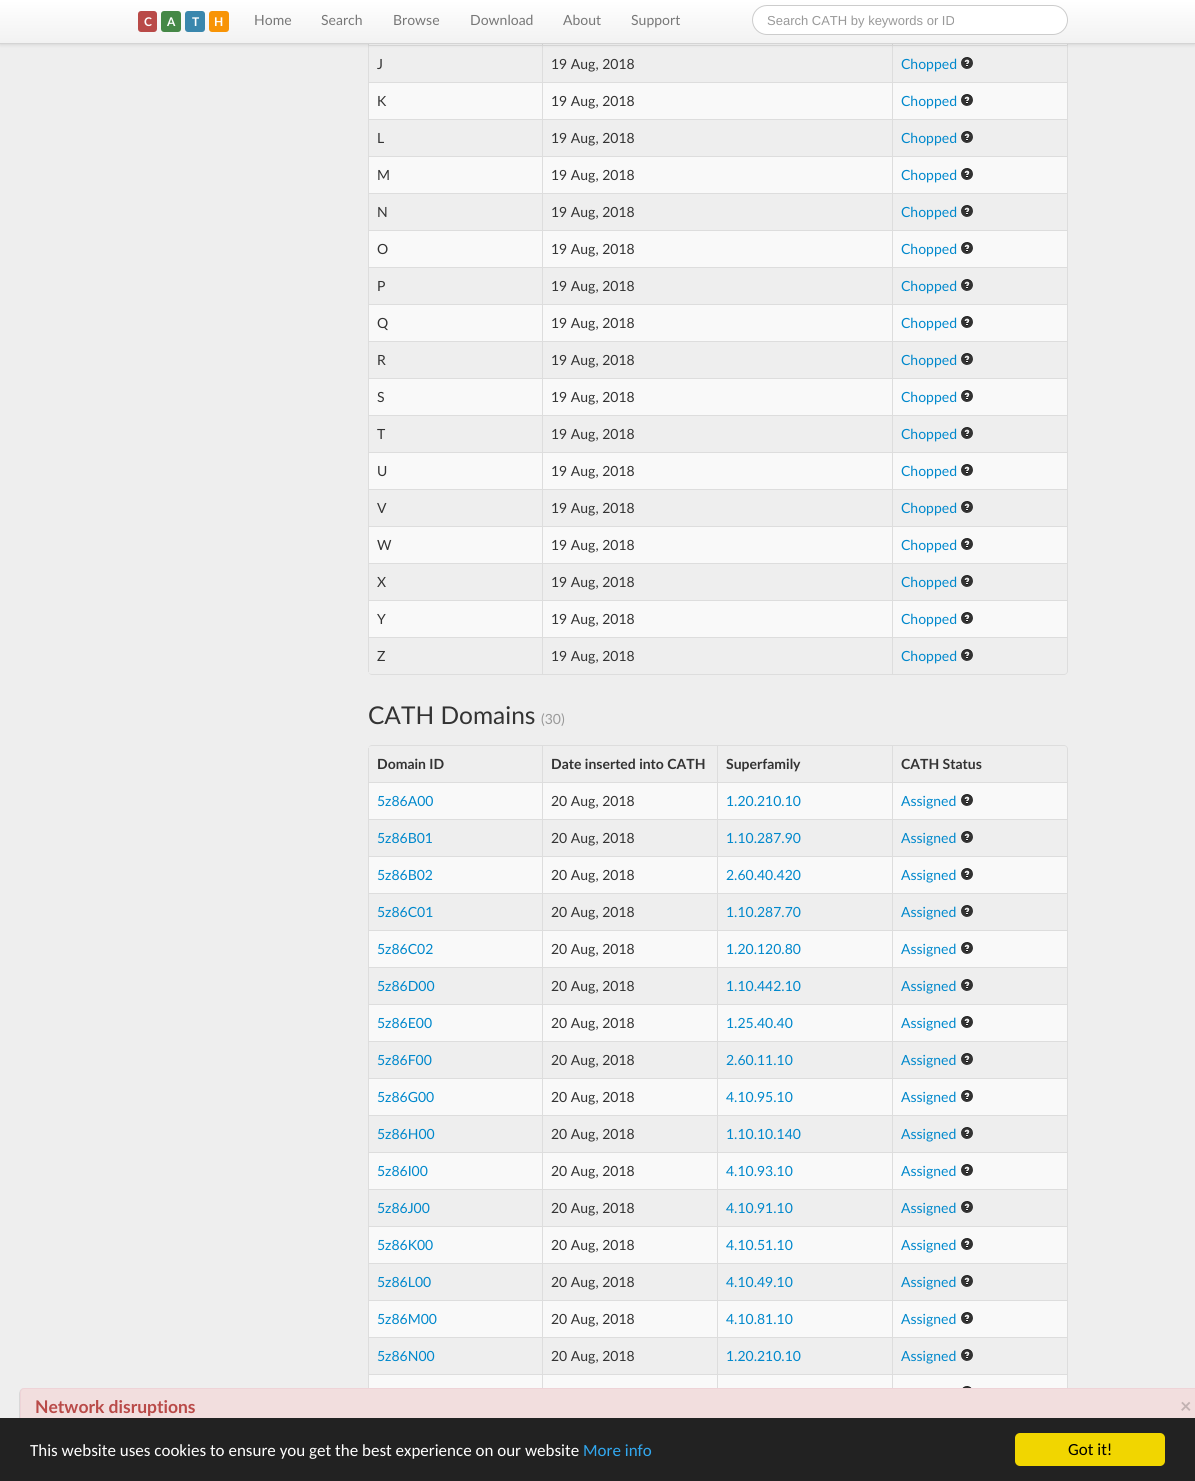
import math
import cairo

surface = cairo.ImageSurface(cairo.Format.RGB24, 1195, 1481)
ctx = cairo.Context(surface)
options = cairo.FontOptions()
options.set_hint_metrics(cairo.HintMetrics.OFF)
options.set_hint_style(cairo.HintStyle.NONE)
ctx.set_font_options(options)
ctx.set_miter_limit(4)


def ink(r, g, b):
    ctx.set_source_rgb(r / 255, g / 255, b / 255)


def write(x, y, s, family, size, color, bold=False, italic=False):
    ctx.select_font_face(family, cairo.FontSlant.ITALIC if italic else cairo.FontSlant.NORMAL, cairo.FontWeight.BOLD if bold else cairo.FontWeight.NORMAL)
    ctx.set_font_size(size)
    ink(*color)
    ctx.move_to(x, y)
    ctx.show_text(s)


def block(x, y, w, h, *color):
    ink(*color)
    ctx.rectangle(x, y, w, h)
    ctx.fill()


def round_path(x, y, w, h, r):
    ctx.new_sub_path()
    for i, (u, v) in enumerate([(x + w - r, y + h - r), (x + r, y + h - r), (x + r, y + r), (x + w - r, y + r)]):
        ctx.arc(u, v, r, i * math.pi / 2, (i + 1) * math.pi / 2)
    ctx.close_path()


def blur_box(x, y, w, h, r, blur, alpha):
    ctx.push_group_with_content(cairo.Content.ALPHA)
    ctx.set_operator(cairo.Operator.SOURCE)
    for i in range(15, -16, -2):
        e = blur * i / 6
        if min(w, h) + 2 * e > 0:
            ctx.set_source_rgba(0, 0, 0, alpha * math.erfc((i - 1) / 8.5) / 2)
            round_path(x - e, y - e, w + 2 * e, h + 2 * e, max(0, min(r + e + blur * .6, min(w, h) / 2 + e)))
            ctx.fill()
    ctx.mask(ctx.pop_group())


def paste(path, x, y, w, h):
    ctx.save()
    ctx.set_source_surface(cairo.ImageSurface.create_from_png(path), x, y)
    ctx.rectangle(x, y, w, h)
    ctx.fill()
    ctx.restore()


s1 = dict(family="Lato", size=12, color=(255, 255, 255), bold=True)
s2 = dict(family="Lato", size=14, color=(119, 119, 119))
s3 = dict(family="Liberation Sans", size=13, color=(153, 153, 153))
s4 = dict(family="Lato", size=14, color=(51, 51, 51))
s5 = dict(family="Lato", size=14, color=(0, 136, 204))
s6 = dict(family="Lato", size=24.5, color=(51, 51, 51))
s7 = dict(family="Lato", size=14, color=(153, 153, 153))
s8 = dict(family="Lato", size=14, color=(51, 51, 51), bold=True)
s9 = dict(family="Lato", size=17.5, color=(185, 74, 72), bold=True)
s10 = dict(family="Lato", size=20, color=(194, 178, 178), bold=True)
s11 = dict(family="Carlito", size=17, color=(255, 255, 255))
s12 = dict(family="Carlito", size=17, color=(49, 168, 240))
s13 = dict(family="Carlito", size=17, color=(0, 0, 0))

ink(238, 238, 238)
ctx.paint()
ink(221, 221, 221)
ctx.set_fill_rule(cairo.FillRule.EVEN_ODD)
ctx.new_path()
ctx.move_to(372, -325)
ctx.line_to(1064, -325)
ctx.curve_to(1066, -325, 1068, -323, 1068, -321)
ctx.line_to(1068, 671)
ctx.curve_to(1068, 673, 1066, 675, 1064, 675)
ctx.line_to(372, 675)
ctx.curve_to(370, 675, 368, 673, 368, 671)
ctx.line_to(368, -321)
ctx.curve_to(368, -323, 370, -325, 372, -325)
ctx.close_path()
ctx.move_to(372, -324)
ctx.line_to(1064, -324)
ctx.curve_to(1066, -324, 1067, -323, 1067, -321)
ctx.line_to(1067, 671)
ctx.curve_to(1067, 673, 1066, 674, 1064, 674)
ctx.line_to(372, 674)
ctx.curve_to(370, 674, 368, 673, 368, 671)
ctx.line_to(368, -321)
ctx.curve_to(368, -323, 370, -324, 372, -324)
ctx.close_path()
ctx.fill()
block(369, 44, 173, 1, 249, 249, 249)
block(368, 44, 1, 1, 221, 221, 221)
block(543, 44, 349, 1, 249, 249, 249)
block(542, 44, 1, 1, 221, 221, 221)
block(893, 44, 174, 1, 249, 249, 249)
block(892, 44, 1, 1, 221, 221, 221)
block(368, 45, 699, 1, 221, 221, 221)
block(368, 45, 1, 37, 221, 221, 221)
block(542, 45, 1, 37, 221, 221, 221)
block(892, 45, 1, 37, 221, 221, 221)
ink(0, 0, 0)
blur_box(0, 1, 1195, 44, 0, 1.5, 0.1)
gradient = cairo.LinearGradient(598, 0, 598, 43)
gradient.add_color_stop_rgba(0, 1, 1, 1, 1)
gradient.add_color_stop_rgba(1, 0.949, 0.949, 0.949, 1)
ctx.set_source(gradient)
ctx.rectangle(0, 0, 1195, 43)
ctx.fill()
block(0, 43, 1195, 1, 212, 212, 212)
ink(185, 74, 72)
round_path(138, 11, 19, 21, 3)
ctx.fill()
write(144, 26, "C", **s1)
ink(70, 136, 71)
round_path(161, 11, 20, 21, 3)
ctx.fill()
write(167, 26, "A", **s1)
ink(58, 135, 173)
round_path(185, 11, 20, 21, 3)
ctx.fill()
write(192, 26, "T", **s1)
ink(248, 148, 6)
round_path(209, 11, 20, 21, 3)
ctx.fill()
write(214, 26, "H", **s1)
write(254, 25, "Home", **s2)
write(321, 25, "Search", **s2)
write(393, 25, "Browse", **s2)
write(470, 25, "Download", **s2)
write(563, 25, "About", **s2)
write(631, 25, "Support", **s2)
ink(255, 255, 255)
round_path(752.5, 5.5, 315, 29, 14.5)
ctx.fill_preserve()
ink(204, 204, 204)
ctx.set_line_width(1)
ctx.stroke()
write(767, 25, "Search CATH by keywords or ID", **s3)
write(377, 69, "J", **s4)
write(551, 69, "19 Aug, 2018", **s4)
write(901, 69, "Chopped", **s5)
paste("pic1.png", 961, 57, 12, 12)
block(369, 83, 173, 36, 249, 249, 249)
block(368, 82, 699, 1, 221, 221, 221)
block(368, 82, 1, 37, 221, 221, 221)
write(377, 106, "K", **s4)
block(543, 83, 349, 36, 249, 249, 249)
block(542, 82, 1, 37, 221, 221, 221)
write(551, 106, "19 Aug, 2018", **s4)
block(893, 83, 174, 36, 249, 249, 249)
block(892, 82, 1, 37, 221, 221, 221)
write(901, 106, "Chopped", **s5)
paste("pic2.png", 961, 94, 12, 12)
block(368, 119, 699, 1, 221, 221, 221)
block(368, 119, 1, 37, 221, 221, 221)
write(377, 143, "L", **s4)
block(542, 119, 1, 37, 221, 221, 221)
write(551, 143, "19 Aug, 2018", **s4)
block(892, 119, 1, 37, 221, 221, 221)
write(901, 143, "Chopped", **s5)
paste("pic1.png", 961, 131, 12, 12)
block(369, 157, 173, 36, 249, 249, 249)
block(368, 156, 699, 1, 221, 221, 221)
block(368, 156, 1, 37, 221, 221, 221)
write(377, 180, "M", **s4)
block(543, 157, 349, 36, 249, 249, 249)
block(542, 156, 1, 37, 221, 221, 221)
write(551, 180, "19 Aug, 2018", **s4)
block(893, 157, 174, 36, 249, 249, 249)
block(892, 156, 1, 37, 221, 221, 221)
write(901, 180, "Chopped", **s5)
paste("pic2.png", 961, 168, 12, 12)
block(368, 193, 699, 1, 221, 221, 221)
block(368, 193, 1, 37, 221, 221, 221)
write(377, 217, "N", **s4)
block(542, 193, 1, 37, 221, 221, 221)
write(551, 217, "19 Aug, 2018", **s4)
block(892, 193, 1, 37, 221, 221, 221)
write(901, 217, "Chopped", **s5)
paste("pic1.png", 961, 205, 12, 12)
block(369, 231, 173, 36, 249, 249, 249)
block(368, 230, 699, 1, 221, 221, 221)
block(368, 230, 1, 37, 221, 221, 221)
write(377, 254, "O", **s4)
block(543, 231, 349, 36, 249, 249, 249)
block(542, 230, 1, 37, 221, 221, 221)
write(551, 254, "19 Aug, 2018", **s4)
block(893, 231, 174, 36, 249, 249, 249)
block(892, 230, 1, 37, 221, 221, 221)
write(901, 254, "Chopped", **s5)
paste("pic2.png", 961, 242, 12, 12)
block(368, 267, 699, 1, 221, 221, 221)
block(368, 267, 1, 37, 221, 221, 221)
write(377, 291, "P", **s4)
block(542, 267, 1, 37, 221, 221, 221)
write(551, 291, "19 Aug, 2018", **s4)
block(892, 267, 1, 37, 221, 221, 221)
write(901, 291, "Chopped", **s5)
paste("pic1.png", 961, 279, 12, 12)
block(369, 305, 173, 36, 249, 249, 249)
block(368, 304, 699, 1, 221, 221, 221)
block(368, 304, 1, 37, 221, 221, 221)
write(377, 328, "Q", **s4)
block(543, 305, 349, 36, 249, 249, 249)
block(542, 304, 1, 37, 221, 221, 221)
write(551, 328, "19 Aug, 2018", **s4)
block(893, 305, 174, 36, 249, 249, 249)
block(892, 304, 1, 37, 221, 221, 221)
write(901, 328, "Chopped", **s5)
paste("pic2.png", 961, 316, 12, 12)
block(368, 341, 699, 1, 221, 221, 221)
block(368, 341, 1, 37, 221, 221, 221)
write(377, 365, "R", **s4)
block(542, 341, 1, 37, 221, 221, 221)
write(551, 365, "19 Aug, 2018", **s4)
block(892, 341, 1, 37, 221, 221, 221)
write(901, 365, "Chopped", **s5)
paste("pic1.png", 961, 353, 12, 12)
block(369, 379, 173, 36, 249, 249, 249)
block(368, 378, 699, 1, 221, 221, 221)
block(368, 378, 1, 37, 221, 221, 221)
write(377, 402, "S", **s4)
block(543, 379, 349, 36, 249, 249, 249)
block(542, 378, 1, 37, 221, 221, 221)
write(551, 402, "19 Aug, 2018", **s4)
block(893, 379, 174, 36, 249, 249, 249)
block(892, 378, 1, 37, 221, 221, 221)
write(901, 402, "Chopped", **s5)
paste("pic2.png", 961, 390, 12, 12)
block(368, 415, 699, 1, 221, 221, 221)
block(368, 415, 1, 37, 221, 221, 221)
write(377, 439, "T", **s4)
block(542, 415, 1, 37, 221, 221, 221)
write(551, 439, "19 Aug, 2018", **s4)
block(892, 415, 1, 37, 221, 221, 221)
write(901, 439, "Chopped", **s5)
paste("pic1.png", 961, 427, 12, 12)
block(369, 453, 173, 36, 249, 249, 249)
block(368, 452, 699, 1, 221, 221, 221)
block(368, 452, 1, 37, 221, 221, 221)
write(377, 476, "U", **s4)
block(543, 453, 349, 36, 249, 249, 249)
block(542, 452, 1, 37, 221, 221, 221)
write(551, 476, "19 Aug, 2018", **s4)
block(893, 453, 174, 36, 249, 249, 249)
block(892, 452, 1, 37, 221, 221, 221)
write(901, 476, "Chopped", **s5)
paste("pic2.png", 961, 464, 12, 12)
block(368, 489, 699, 1, 221, 221, 221)
block(368, 489, 1, 37, 221, 221, 221)
write(377, 513, "V", **s4)
block(542, 489, 1, 37, 221, 221, 221)
write(551, 513, "19 Aug, 2018", **s4)
block(892, 489, 1, 37, 221, 221, 221)
write(901, 513, "Chopped", **s5)
paste("pic1.png", 961, 501, 12, 12)
block(369, 527, 173, 36, 249, 249, 249)
block(368, 526, 699, 1, 221, 221, 221)
block(368, 526, 1, 37, 221, 221, 221)
write(377, 550, "W", **s4)
block(543, 527, 349, 36, 249, 249, 249)
block(542, 526, 1, 37, 221, 221, 221)
write(551, 550, "19 Aug, 2018", **s4)
block(893, 527, 174, 36, 249, 249, 249)
block(892, 526, 1, 37, 221, 221, 221)
write(901, 550, "Chopped", **s5)
paste("pic2.png", 961, 538, 12, 12)
block(368, 563, 699, 1, 221, 221, 221)
block(368, 563, 1, 37, 221, 221, 221)
write(377, 587, "X", **s4)
block(542, 563, 1, 37, 221, 221, 221)
write(551, 587, "19 Aug, 2018", **s4)
block(892, 563, 1, 37, 221, 221, 221)
write(901, 587, "Chopped", **s5)
paste("pic1.png", 961, 575, 12, 12)
block(369, 601, 173, 36, 249, 249, 249)
block(368, 600, 699, 1, 221, 221, 221)
block(368, 600, 1, 37, 221, 221, 221)
write(377, 624, "Y", **s4)
block(543, 601, 349, 36, 249, 249, 249)
block(542, 600, 1, 37, 221, 221, 221)
write(551, 624, "19 Aug, 2018", **s4)
block(893, 601, 174, 36, 249, 249, 249)
block(892, 600, 1, 37, 221, 221, 221)
write(901, 624, "Chopped", **s5)
paste("pic2.png", 961, 612, 12, 12)
block(368, 637, 699, 1, 221, 221, 221)
block(368, 637, 1, 35, 221, 221, 221)
write(377, 661, "Z", **s4)
block(542, 637, 1, 37, 221, 221, 221)
write(551, 661, "19 Aug, 2018", **s4)
block(892, 637, 1, 37, 221, 221, 221)
write(901, 661, "Chopped", **s5)
paste("pic1.png", 961, 649, 12, 12)
write(368, 724, "CATH Domains", **s6)
write(541, 724, "(30)", **s7)
ink(221, 221, 221)
ctx.new_path()
ctx.move_to(372, 745)
ctx.line_to(1064, 745)
ctx.curve_to(1066, 745, 1068, 747, 1068, 749)
ctx.line_to(1068, 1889)
ctx.curve_to(1068, 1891, 1066, 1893, 1064, 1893)
ctx.line_to(372, 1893)
ctx.curve_to(370, 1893, 368, 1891, 368, 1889)
ctx.line_to(368, 749)
ctx.curve_to(368, 747, 370, 745, 372, 745)
ctx.close_path()
ctx.move_to(372, 746)
ctx.line_to(1064, 746)
ctx.curve_to(1066, 746, 1067, 747, 1067, 749)
ctx.line_to(1067, 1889)
ctx.curve_to(1067, 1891, 1066, 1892, 1064, 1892)
ctx.line_to(372, 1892)
ctx.curve_to(370, 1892, 368, 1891, 368, 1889)
ctx.line_to(368, 749)
ctx.curve_to(368, 747, 370, 746, 372, 746)
ctx.close_path()
ctx.fill()
block(368, 748, 1, 34, 221, 221, 221)
write(377, 769, "Domain ID", **s8)
block(542, 746, 1, 36, 221, 221, 221)
write(551, 769, "Date inserted into CATH", **s8)
block(717, 746, 1, 36, 221, 221, 221)
write(726, 769, "Superfamily", **s8)
block(892, 746, 1, 36, 221, 221, 221)
write(901, 769, "CATH Status", **s8)
block(369, 783, 173, 36, 249, 249, 249)
block(368, 782, 699, 1, 221, 221, 221)
block(368, 782, 1, 37, 221, 221, 221)
write(377, 806, "5z86A00", **s5)
block(543, 783, 174, 36, 249, 249, 249)
block(542, 782, 1, 37, 221, 221, 221)
write(551, 806, "20 Aug, 2018", **s4)
block(718, 783, 174, 36, 249, 249, 249)
block(717, 782, 1, 37, 221, 221, 221)
write(726, 806, "1.20.210.10", **s5)
block(893, 783, 174, 36, 249, 249, 249)
block(892, 782, 1, 37, 221, 221, 221)
write(901, 806, "Assigned", **s5)
paste("pic2.png", 961, 794, 12, 12)
block(368, 819, 699, 1, 221, 221, 221)
block(368, 819, 1, 37, 221, 221, 221)
write(377, 843, "5z86B01", **s5)
block(542, 819, 1, 37, 221, 221, 221)
write(551, 843, "20 Aug, 2018", **s4)
block(717, 819, 1, 37, 221, 221, 221)
write(726, 843, "1.10.287.90", **s5)
block(892, 819, 1, 37, 221, 221, 221)
write(901, 843, "Assigned", **s5)
paste("pic1.png", 961, 831, 12, 12)
block(369, 857, 173, 36, 249, 249, 249)
block(368, 856, 699, 1, 221, 221, 221)
block(368, 856, 1, 37, 221, 221, 221)
write(377, 880, "5z86B02", **s5)
block(543, 857, 174, 36, 249, 249, 249)
block(542, 856, 1, 37, 221, 221, 221)
write(551, 880, "20 Aug, 2018", **s4)
block(718, 857, 174, 36, 249, 249, 249)
block(717, 856, 1, 37, 221, 221, 221)
write(726, 880, "2.60.40.420", **s5)
block(893, 857, 174, 36, 249, 249, 249)
block(892, 856, 1, 37, 221, 221, 221)
write(901, 880, "Assigned", **s5)
paste("pic2.png", 961, 868, 12, 12)
block(368, 893, 699, 1, 221, 221, 221)
block(368, 893, 1, 37, 221, 221, 221)
write(377, 917, "5z86C01", **s5)
block(542, 893, 1, 37, 221, 221, 221)
write(551, 917, "20 Aug, 2018", **s4)
block(717, 893, 1, 37, 221, 221, 221)
write(726, 917, "1.10.287.70", **s5)
block(892, 893, 1, 37, 221, 221, 221)
write(901, 917, "Assigned", **s5)
paste("pic1.png", 961, 905, 12, 12)
block(369, 931, 173, 36, 249, 249, 249)
block(368, 930, 699, 1, 221, 221, 221)
block(368, 930, 1, 37, 221, 221, 221)
write(377, 954, "5z86C02", **s5)
block(543, 931, 174, 36, 249, 249, 249)
block(542, 930, 1, 37, 221, 221, 221)
write(551, 954, "20 Aug, 2018", **s4)
block(718, 931, 174, 36, 249, 249, 249)
block(717, 930, 1, 37, 221, 221, 221)
write(726, 954, "1.20.120.80", **s5)
block(893, 931, 174, 36, 249, 249, 249)
block(892, 930, 1, 37, 221, 221, 221)
write(901, 954, "Assigned", **s5)
paste("pic2.png", 961, 942, 12, 12)
block(368, 967, 699, 1, 221, 221, 221)
block(368, 967, 1, 37, 221, 221, 221)
write(377, 991, "5z86D00", **s5)
block(542, 967, 1, 37, 221, 221, 221)
write(551, 991, "20 Aug, 2018", **s4)
block(717, 967, 1, 37, 221, 221, 221)
write(726, 991, "1.10.442.10", **s5)
block(892, 967, 1, 37, 221, 221, 221)
write(901, 991, "Assigned", **s5)
paste("pic1.png", 961, 979, 12, 12)
block(369, 1005, 173, 36, 249, 249, 249)
block(368, 1004, 699, 1, 221, 221, 221)
block(368, 1004, 1, 37, 221, 221, 221)
write(377, 1028, "5z86E00", **s5)
block(543, 1005, 174, 36, 249, 249, 249)
block(542, 1004, 1, 37, 221, 221, 221)
write(551, 1028, "20 Aug, 2018", **s4)
block(718, 1005, 174, 36, 249, 249, 249)
block(717, 1004, 1, 37, 221, 221, 221)
write(726, 1028, "1.25.40.40", **s5)
block(893, 1005, 174, 36, 249, 249, 249)
block(892, 1004, 1, 37, 221, 221, 221)
write(901, 1028, "Assigned", **s5)
paste("pic2.png", 961, 1016, 12, 12)
block(368, 1041, 699, 1, 221, 221, 221)
block(368, 1041, 1, 37, 221, 221, 221)
write(377, 1065, "5z86F00", **s5)
block(542, 1041, 1, 37, 221, 221, 221)
write(551, 1065, "20 Aug, 2018", **s4)
block(717, 1041, 1, 37, 221, 221, 221)
write(726, 1065, "2.60.11.10", **s5)
block(892, 1041, 1, 37, 221, 221, 221)
write(901, 1065, "Assigned", **s5)
paste("pic1.png", 961, 1053, 12, 12)
block(369, 1079, 173, 36, 249, 249, 249)
block(368, 1078, 699, 1, 221, 221, 221)
block(368, 1078, 1, 37, 221, 221, 221)
write(377, 1102, "5z86G00", **s5)
block(543, 1079, 174, 36, 249, 249, 249)
block(542, 1078, 1, 37, 221, 221, 221)
write(551, 1102, "20 Aug, 2018", **s4)
block(718, 1079, 174, 36, 249, 249, 249)
block(717, 1078, 1, 37, 221, 221, 221)
write(726, 1102, "4.10.95.10", **s5)
block(893, 1079, 174, 36, 249, 249, 249)
block(892, 1078, 1, 37, 221, 221, 221)
write(901, 1102, "Assigned", **s5)
paste("pic2.png", 961, 1090, 12, 12)
block(368, 1115, 699, 1, 221, 221, 221)
block(368, 1115, 1, 37, 221, 221, 221)
write(377, 1139, "5z86H00", **s5)
block(542, 1115, 1, 37, 221, 221, 221)
write(551, 1139, "20 Aug, 2018", **s4)
block(717, 1115, 1, 37, 221, 221, 221)
write(726, 1139, "1.10.10.140", **s5)
block(892, 1115, 1, 37, 221, 221, 221)
write(901, 1139, "Assigned", **s5)
paste("pic1.png", 961, 1127, 12, 12)
block(369, 1153, 173, 36, 249, 249, 249)
block(368, 1152, 699, 1, 221, 221, 221)
block(368, 1152, 1, 37, 221, 221, 221)
write(377, 1176, "5z86I00", **s5)
block(543, 1153, 174, 36, 249, 249, 249)
block(542, 1152, 1, 37, 221, 221, 221)
write(551, 1176, "20 Aug, 2018", **s4)
block(718, 1153, 174, 36, 249, 249, 249)
block(717, 1152, 1, 37, 221, 221, 221)
write(726, 1176, "4.10.93.10", **s5)
block(893, 1153, 174, 36, 249, 249, 249)
block(892, 1152, 1, 37, 221, 221, 221)
write(901, 1176, "Assigned", **s5)
paste("pic2.png", 961, 1164, 12, 12)
block(368, 1189, 699, 1, 221, 221, 221)
block(368, 1189, 1, 37, 221, 221, 221)
write(377, 1213, "5z86J00", **s5)
block(542, 1189, 1, 37, 221, 221, 221)
write(551, 1213, "20 Aug, 2018", **s4)
block(717, 1189, 1, 37, 221, 221, 221)
write(726, 1213, "4.10.91.10", **s5)
block(892, 1189, 1, 37, 221, 221, 221)
write(901, 1213, "Assigned", **s5)
paste("pic1.png", 961, 1201, 12, 12)
block(369, 1227, 173, 36, 249, 249, 249)
block(368, 1226, 699, 1, 221, 221, 221)
block(368, 1226, 1, 37, 221, 221, 221)
write(377, 1250, "5z86K00", **s5)
block(543, 1227, 174, 36, 249, 249, 249)
block(542, 1226, 1, 37, 221, 221, 221)
write(551, 1250, "20 Aug, 2018", **s4)
block(718, 1227, 174, 36, 249, 249, 249)
block(717, 1226, 1, 37, 221, 221, 221)
write(726, 1250, "4.10.51.10", **s5)
block(893, 1227, 174, 36, 249, 249, 249)
block(892, 1226, 1, 37, 221, 221, 221)
write(901, 1250, "Assigned", **s5)
paste("pic2.png", 961, 1238, 12, 12)
block(368, 1263, 699, 1, 221, 221, 221)
block(368, 1263, 1, 37, 221, 221, 221)
write(377, 1287, "5z86L00", **s5)
block(542, 1263, 1, 37, 221, 221, 221)
write(551, 1287, "20 Aug, 2018", **s4)
block(717, 1263, 1, 37, 221, 221, 221)
write(726, 1287, "4.10.49.10", **s5)
block(892, 1263, 1, 37, 221, 221, 221)
write(901, 1287, "Assigned", **s5)
paste("pic1.png", 961, 1275, 12, 12)
block(369, 1301, 173, 36, 249, 249, 249)
block(368, 1300, 699, 1, 221, 221, 221)
block(368, 1300, 1, 37, 221, 221, 221)
write(377, 1324, "5z86M00", **s5)
block(543, 1301, 174, 36, 249, 249, 249)
block(542, 1300, 1, 37, 221, 221, 221)
write(551, 1324, "20 Aug, 2018", **s4)
block(718, 1301, 174, 36, 249, 249, 249)
block(717, 1300, 1, 37, 221, 221, 221)
write(726, 1324, "4.10.81.10", **s5)
block(893, 1301, 174, 36, 249, 249, 249)
block(892, 1300, 1, 37, 221, 221, 221)
write(901, 1324, "Assigned", **s5)
paste("pic2.png", 961, 1312, 12, 12)
block(368, 1337, 699, 1, 221, 221, 221)
block(368, 1337, 1, 37, 221, 221, 221)
write(377, 1361, "5z86N00", **s5)
block(542, 1337, 1, 37, 221, 221, 221)
write(551, 1361, "20 Aug, 2018", **s4)
block(717, 1337, 1, 37, 221, 221, 221)
write(726, 1361, "1.20.210.10", **s5)
block(892, 1337, 1, 37, 221, 221, 221)
write(901, 1361, "Assigned", **s5)
paste("pic1.png", 961, 1349, 12, 12)
block(369, 1375, 173, 13, 249, 249, 249)
block(368, 1374, 699, 1, 221, 221, 221)
block(368, 1374, 1, 14, 221, 221, 221)
block(543, 1375, 174, 13, 249, 249, 249)
block(542, 1374, 1, 14, 221, 221, 221)
block(718, 1375, 174, 13, 249, 249, 249)
block(717, 1374, 1, 14, 221, 221, 221)
block(893, 1375, 174, 13, 249, 249, 249)
block(892, 1374, 1, 14, 221, 221, 221)
paste("pic3.png", 962, 1386, 10, 2)
ink(153, 153, 153)
blur_box(20, 1389, 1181, 88, 4, 0.5, 1)
ink(242, 222, 222)
round_path(20.5, 1388.5, 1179, 87, 3.5)
ctx.fill_preserve()
ink(238, 211, 215)
ctx.stroke()
write(35, 1413, "Network disruptions", **s9)
write(1180, 1413, "×", **s10)
block(0, 1418, 1195, 63, 34, 34, 34)
write(30, 1456, "This website uses cookies to ensure you get the best experience on our website", **s11)
write(583, 1456, "More info", **s12)
ink(241, 214, 0)
round_path(1015, 1433, 150, 33, 5)
ctx.fill()
write(1068, 1455, "Got it!", **s13)
surface.write_to_png("screenshot.png")
